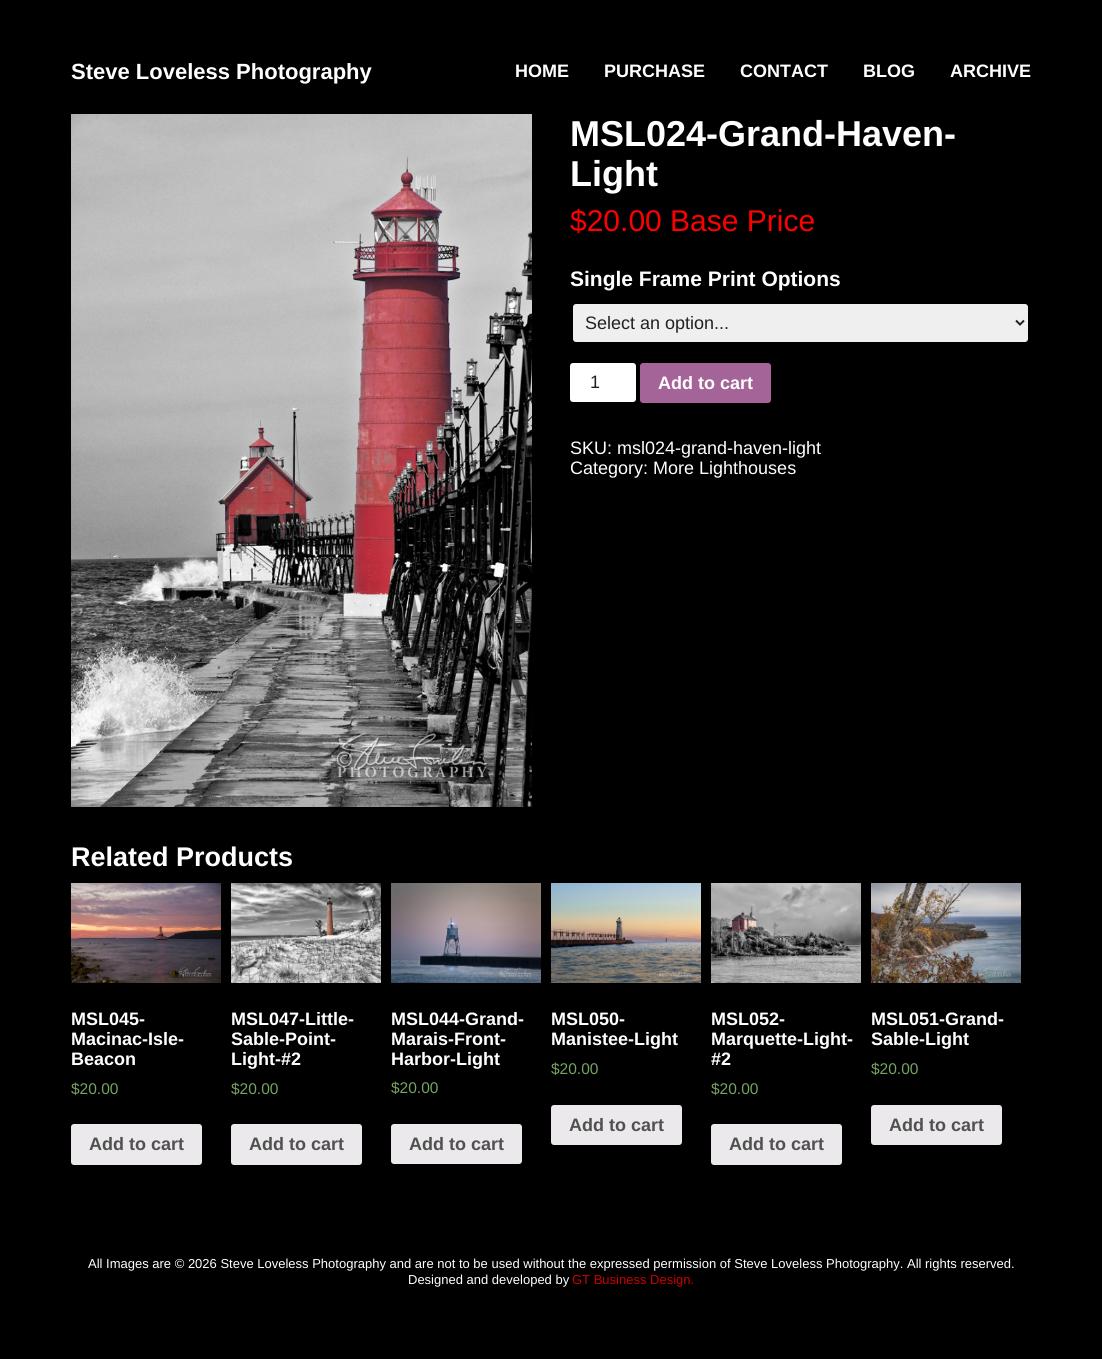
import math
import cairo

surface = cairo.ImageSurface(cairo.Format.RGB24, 1102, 1359)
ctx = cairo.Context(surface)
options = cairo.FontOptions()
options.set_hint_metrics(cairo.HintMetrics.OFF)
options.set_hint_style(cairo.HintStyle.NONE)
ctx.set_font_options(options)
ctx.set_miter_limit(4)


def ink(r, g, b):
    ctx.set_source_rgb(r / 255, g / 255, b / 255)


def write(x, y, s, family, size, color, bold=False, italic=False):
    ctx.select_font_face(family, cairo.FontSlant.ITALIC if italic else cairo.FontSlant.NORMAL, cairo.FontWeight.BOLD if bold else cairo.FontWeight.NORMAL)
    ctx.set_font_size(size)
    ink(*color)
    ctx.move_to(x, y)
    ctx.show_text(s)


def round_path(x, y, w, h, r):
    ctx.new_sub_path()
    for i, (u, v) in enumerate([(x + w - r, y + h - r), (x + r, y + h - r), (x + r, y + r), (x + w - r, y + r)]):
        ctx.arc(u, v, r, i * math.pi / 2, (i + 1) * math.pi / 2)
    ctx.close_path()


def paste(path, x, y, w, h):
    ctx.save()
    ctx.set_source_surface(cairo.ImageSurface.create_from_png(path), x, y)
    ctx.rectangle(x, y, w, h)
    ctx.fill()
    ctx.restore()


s1 = dict(family="Liberation Sans", size=22, color=(255, 255, 255), bold=True)
s2 = dict(family="Liberation Sans", size=18, color=(255, 255, 255), bold=True)
s3 = dict(family="Liberation Sans", size=36, color=(255, 255, 255), bold=True)
s4 = dict(family="Liberation Sans", size=30, color=(255, 0, 0))
s5 = dict(family="Liberation Sans", size=21, color=(255, 255, 255), bold=True)
s6 = dict(family="Liberation Sans", size=18, color=(34, 34, 34))
s7 = dict(family="Liberation Sans", size=18, color=(255, 255, 255))
s8 = dict(family="Liberation Sans", size=27, color=(255, 255, 255), bold=True)
s9 = dict(family="Liberation Sans", size=15.5, color=(119, 164, 100))
s10 = dict(family="Liberation Sans", size=18, color=(81, 81, 81), bold=True)
s11 = dict(family="Liberation Sans", size=13, color=(255, 255, 255))
s12 = dict(family="Liberation Sans", size=13, color=(201, 0, 0))

ink(0, 0, 0)
ctx.paint()
write(71, 79, "Steve Loveless Photography", **s1)
write(515, 77, "HOME", **s2)
write(604, 77, "PURCHASE", **s2)
write(740, 77, "CONTACT", **s2)
write(863, 77, "BLOG", **s2)
write(950, 77, "ARCHIVE", **s2)
paste("pic1.png", 71, 114, 461, 693)
write(570, 146, "MSL024-Grand-Haven-", **s3)
write(570, 186, "Light", **s3)
write(570, 231, "$20.00 Base Price", **s4)
write(570, 286, "Single Frame Print Options", **s5)
ink(239, 239, 239)
round_path(573, 304, 455, 38, 3)
ctx.fill()
ctx.new_path()
ctx.move_to(1016, 320.5)
ctx.line_to(1020, 324.5)
ctx.line_to(1024, 320.5)
ink(34, 34, 34)
ctx.stroke()
write(585, 329, "Select an option...", **s6)
ink(255, 255, 255)
round_path(570, 363, 66, 39, 3)
ctx.fill()
write(590, 388, "1", **s6)
ink(164, 100, 151)
round_path(640, 363, 131, 40, 3)
ctx.fill()
write(658, 389, "Add to cart", **s2)
write(570, 454, "SKU: msl024-grand-haven-light", **s7)
write(570, 474, "Category: More Lighthouses", **s7)
write(71, 866, "Related Products", **s8)
paste("pic2.png", 71, 883, 150, 100)
write(71, 1025, "MSL045-", **s2)
write(71, 1045, "Macinac-Isle-", **s2)
write(71, 1065, "Beacon", **s2)
write(71, 1094, "$20.00", **s9)
ink(235, 233, 235)
round_path(71, 1124, 131, 41, 3)
ctx.fill()
write(89, 1150, "Add to cart", **s10)
paste("pic3.png", 231, 883, 150, 100)
write(231, 1025, "MSL047-Little-", **s2)
write(231, 1045, "Sable-Point-", **s2)
write(231, 1065, "Light-#2", **s2)
write(231, 1094, "$20.00", **s9)
ink(235, 233, 235)
round_path(231, 1124, 131, 41, 3)
ctx.fill()
write(249, 1150, "Add to cart", **s10)
paste("pic4.png", 391, 883, 150, 100)
write(391, 1025, "MSL044-Grand-", **s2)
write(391, 1045, "Marais-Front-", **s2)
write(391, 1065, "Harbor-Light", **s2)
write(391, 1093, "$20.00", **s9)
ink(235, 233, 235)
round_path(391, 1124, 131, 40, 3)
ctx.fill()
write(409, 1150, "Add to cart", **s10)
paste("pic5.png", 551, 883, 150, 100)
write(551, 1025, "MSL050-", **s2)
write(551, 1045, "Manistee-Light", **s2)
write(551, 1074, "$20.00", **s9)
ink(235, 233, 235)
round_path(551, 1105, 131, 40, 3)
ctx.fill()
write(569, 1131, "Add to cart", **s10)
paste("pic6.png", 711, 883, 150, 100)
write(711, 1025, "MSL052-", **s2)
write(711, 1045, "Marquette-Light-", **s2)
write(711, 1065, "#2", **s2)
write(711, 1094, "$20.00", **s9)
ink(235, 233, 235)
round_path(711, 1124, 131, 41, 3)
ctx.fill()
write(729, 1150, "Add to cart", **s10)
paste("pic7.png", 871, 883, 150, 100)
write(871, 1025, "MSL051-Grand-", **s2)
write(871, 1045, "Sable-Light", **s2)
write(871, 1074, "$20.00", **s9)
ink(235, 233, 235)
round_path(871, 1105, 131, 40, 3)
ctx.fill()
write(889, 1131, "Add to cart", **s10)
write(88, 1268, "All Images are © 2026 Steve Loveless Photography and are not to be used without the expressed permission of Steve Loveless Photography. All rights reserved.", **s11)
write(408, 1284, "Designed and developed by", **s11)
write(572, 1284, "GT Business Design.", **s12)
surface.write_to_png("screenshot.png")
